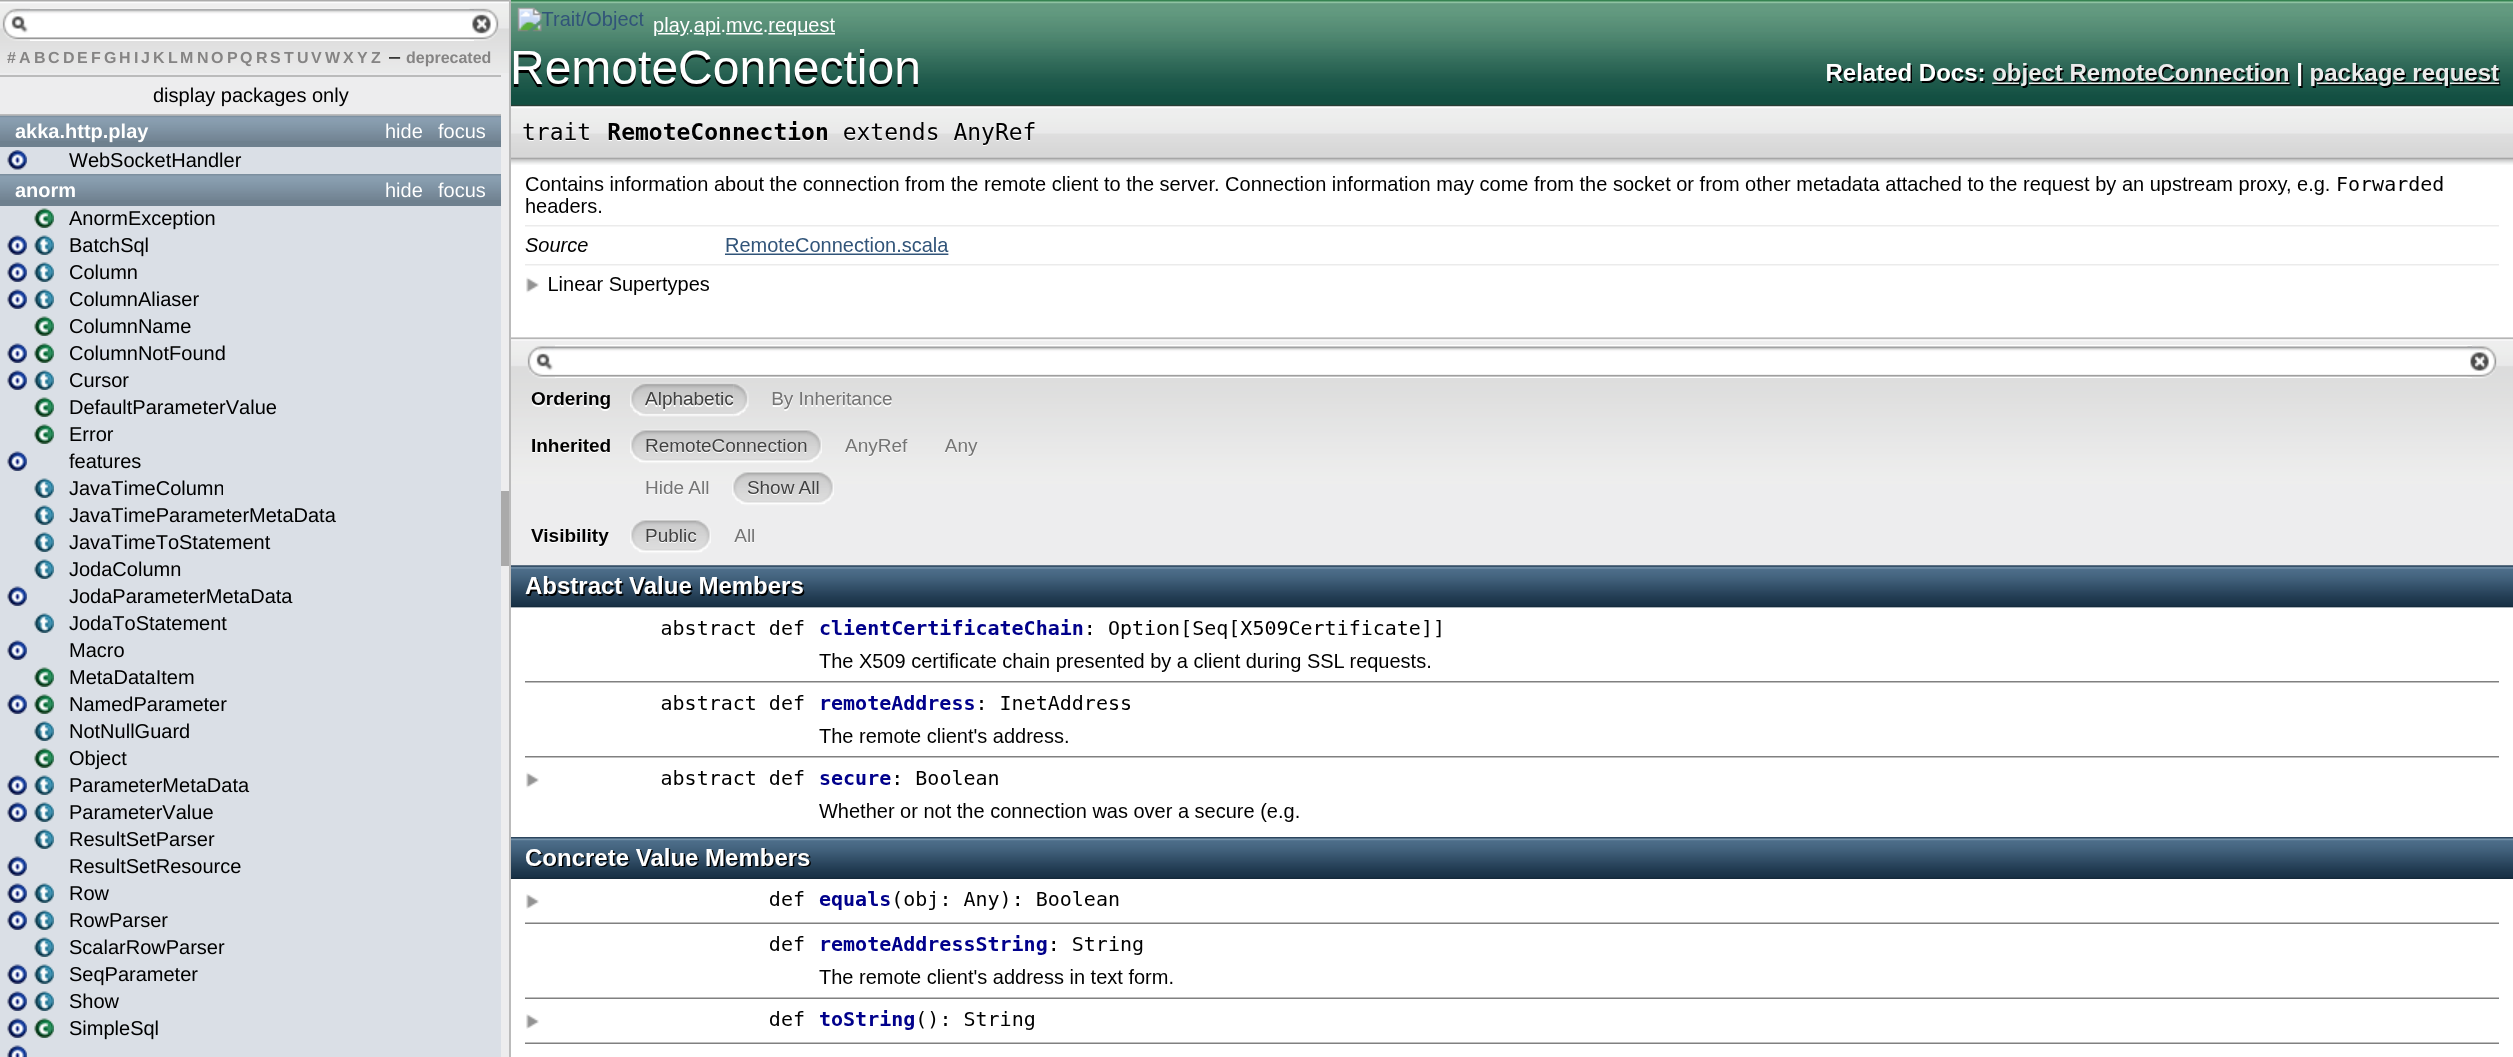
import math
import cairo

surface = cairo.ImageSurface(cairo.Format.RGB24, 2513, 1057)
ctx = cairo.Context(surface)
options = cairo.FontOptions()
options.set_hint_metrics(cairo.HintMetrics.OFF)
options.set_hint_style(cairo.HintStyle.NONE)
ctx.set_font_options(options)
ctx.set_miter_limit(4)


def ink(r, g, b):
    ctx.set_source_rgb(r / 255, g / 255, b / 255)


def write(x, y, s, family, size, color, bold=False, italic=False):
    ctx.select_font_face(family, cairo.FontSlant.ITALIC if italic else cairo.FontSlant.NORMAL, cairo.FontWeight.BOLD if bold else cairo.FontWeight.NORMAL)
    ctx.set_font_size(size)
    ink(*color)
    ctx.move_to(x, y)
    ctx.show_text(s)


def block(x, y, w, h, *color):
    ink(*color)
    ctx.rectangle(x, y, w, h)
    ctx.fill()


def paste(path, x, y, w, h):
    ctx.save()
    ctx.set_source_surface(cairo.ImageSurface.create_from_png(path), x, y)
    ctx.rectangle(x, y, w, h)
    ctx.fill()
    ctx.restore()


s1 = dict(family="Liberation Sans", size=16, color=(133, 132, 132), bold=True)
s2 = dict(family="Liberation Sans", size=20, color=(0, 0, 0))
s3 = dict(family="Liberation Sans", size=20, color=(255, 255, 255), bold=True)
s4 = dict(family="Liberation Sans", size=20, color=(255, 255, 255))

ink(255, 255, 255)
ctx.paint()
block(0, 73, 501, 41, 237, 237, 238)
paste("pic1.png", 0, 0, 501, 73)
block(0, 114, 501, 2, 187, 187, 187)
paste("pic2.png", 2, 8, 28, 33)
block(30, 8, 444, 33, 255, 255, 255)
paste("pic3.png", 30, 8, 444, 32)
paste("pic4.png", 469, 8, 30, 33)
block(0, 75, 501, 2, 187, 187, 187)
write(7, 63, "#", **s1)
write(19, 63, "A", **s1)
write(34, 63, "B", **s1)
write(48, 63, "C", **s1)
write(63, 63, "D", **s1)
write(77, 63, "E", **s1)
write(91, 63, "F", **s1)
write(104, 63, "G", **s1)
write(119, 63, "H", **s1)
write(134, 63, "I", **s1)
write(141, 63, "J", **s1)
write(153, 63, "K", **s1)
write(168, 63, "L", **s1)
write(180, 63, "M", **s1)
write(197, 63, "N", **s1)
write(211, 63, "O", **s1)
write(227, 63, "P", **s1)
write(240, 63, "Q", **s1)
write(256, 63, "R", **s1)
write(270, 63, "S", **s1)
write(284, 63, "T", **s1)
write(297, 63, "U", **s1)
write(311, 63, "V", **s1)
write(325, 63, "W", **s1)
write(343, 63, "X", **s1)
write(357, 63, "Y", **s1)
write(371, 63, "Z", **s1)
write(389, 63, "–", **s2)
write(406, 63, "deprecated", **s1)
write(153, 102, "display packages only", **s2)
block(0, 141, 501, 6, 110, 128, 142)
paste("pic5.png", 0, 115, 501, 26)
write(15, 138, "akka.http.play", **s3)
write(385, 138, "hide", **s4)
write(438, 138, "focus", **s4)
block(0, 147, 501, 27, 218, 223, 230)
paste("pic6.png", 7, 150, 20, 20)
write(69, 167, "WebSocketHandler", **s2)
block(0, 200, 501, 6, 110, 128, 142)
paste("pic7.png", 0, 174, 501, 26)
write(15, 197, "anorm", **s3)
write(385, 197, "hide", **s4)
write(438, 197, "focus", **s4)
block(0, 206, 501, 851, 218, 223, 230)
paste("pic8.png", 34, 208, 20, 20)
write(69, 225, "AnormException", **s2)
paste("pic9.png", 7, 235, 20, 20)
paste("pic10.png", 34, 235, 20, 20)
write(69, 252, "BatchSql", **s2)
paste("pic9.png", 7, 262, 20, 20)
paste("pic10.png", 34, 262, 20, 20)
write(69, 279, "Column", **s2)
paste("pic9.png", 7, 289, 20, 20)
paste("pic10.png", 34, 289, 20, 20)
write(69, 306, "ColumnAliaser", **s2)
paste("pic8.png", 34, 316, 20, 20)
write(69, 333, "ColumnName", **s2)
paste("pic9.png", 7, 343, 20, 20)
paste("pic8.png", 34, 343, 20, 20)
write(69, 360, "ColumnNotFound", **s2)
paste("pic9.png", 7, 370, 20, 20)
paste("pic10.png", 34, 370, 20, 20)
write(69, 387, "Cursor", **s2)
paste("pic8.png", 34, 397, 20, 20)
write(69, 414, "DefaultParameterValue", **s2)
paste("pic8.png", 34, 424, 20, 20)
write(69, 441, "Error", **s2)
paste("pic9.png", 7, 451, 20, 20)
write(69, 468, "features", **s2)
paste("pic10.png", 34, 478, 20, 20)
write(69, 495, "JavaTimeColumn", **s2)
paste("pic10.png", 34, 505, 20, 20)
write(69, 522, "JavaTimeParameterMetaData", **s2)
paste("pic10.png", 34, 532, 20, 20)
write(69, 549, "JavaTimeToStatement", **s2)
paste("pic10.png", 34, 559, 20, 20)
write(69, 576, "JodaColumn", **s2)
paste("pic9.png", 7, 586, 20, 20)
write(69, 603, "JodaParameterMetaData", **s2)
paste("pic10.png", 34, 613, 20, 20)
write(69, 630, "JodaToStatement", **s2)
paste("pic9.png", 7, 640, 20, 20)
write(69, 657, "Macro", **s2)
paste("pic8.png", 34, 667, 20, 20)
write(69, 684, "MetaDataItem", **s2)
paste("pic9.png", 7, 694, 20, 20)
paste("pic8.png", 34, 694, 20, 20)
write(69, 711, "NamedParameter", **s2)
paste("pic10.png", 34, 721, 20, 20)
write(69, 738, "NotNullGuard", **s2)
paste("pic8.png", 34, 748, 20, 20)
write(69, 765, "Object", **s2)
paste("pic9.png", 7, 775, 20, 20)
paste("pic10.png", 34, 775, 20, 20)
write(69, 792, "ParameterMetaData", **s2)
paste("pic9.png", 7, 802, 20, 20)
paste("pic10.png", 34, 802, 20, 20)
write(69, 819, "ParameterValue", **s2)
paste("pic10.png", 34, 829, 20, 20)
write(69, 846, "ResultSetParser", **s2)
paste("pic9.png", 7, 856, 20, 20)
write(69, 873, "ResultSetResource", **s2)
paste("pic9.png", 7, 883, 20, 20)
paste("pic10.png", 34, 883, 20, 20)
write(69, 900, "Row", **s2)
paste("pic9.png", 7, 910, 20, 20)
paste("pic10.png", 34, 910, 20, 20)
write(69, 927, "RowParser", **s2)
paste("pic10.png", 34, 937, 20, 20)
write(69, 954, "ScalarRowParser", **s2)
paste("pic9.png", 7, 964, 20, 20)
paste("pic10.png", 34, 964, 20, 20)
write(69, 981, "SeqParameter", **s2)
paste("pic9.png", 7, 991, 20, 20)
paste("pic10.png", 34, 991, 20, 20)
write(69, 1008, "Show", **s2)
paste("pic9.png", 7, 1018, 20, 20)
paste("pic8.png", 34, 1018, 20, 20)
write(69, 1035, "SimpleSql", **s2)
paste("pic11.png", 7, 1045, 20, 12)
block(501, 73, 8, 984, 237, 237, 238)
paste("pic12.png", 501, 0, 8, 73)
block(509, 0, 2, 1057, 187, 187, 187)
block(501, 491, 8, 75, 170, 170, 170)
paste("pic13.png", 511, 0, 2002, 1044)
surface.write_to_png("screenshot.png")
